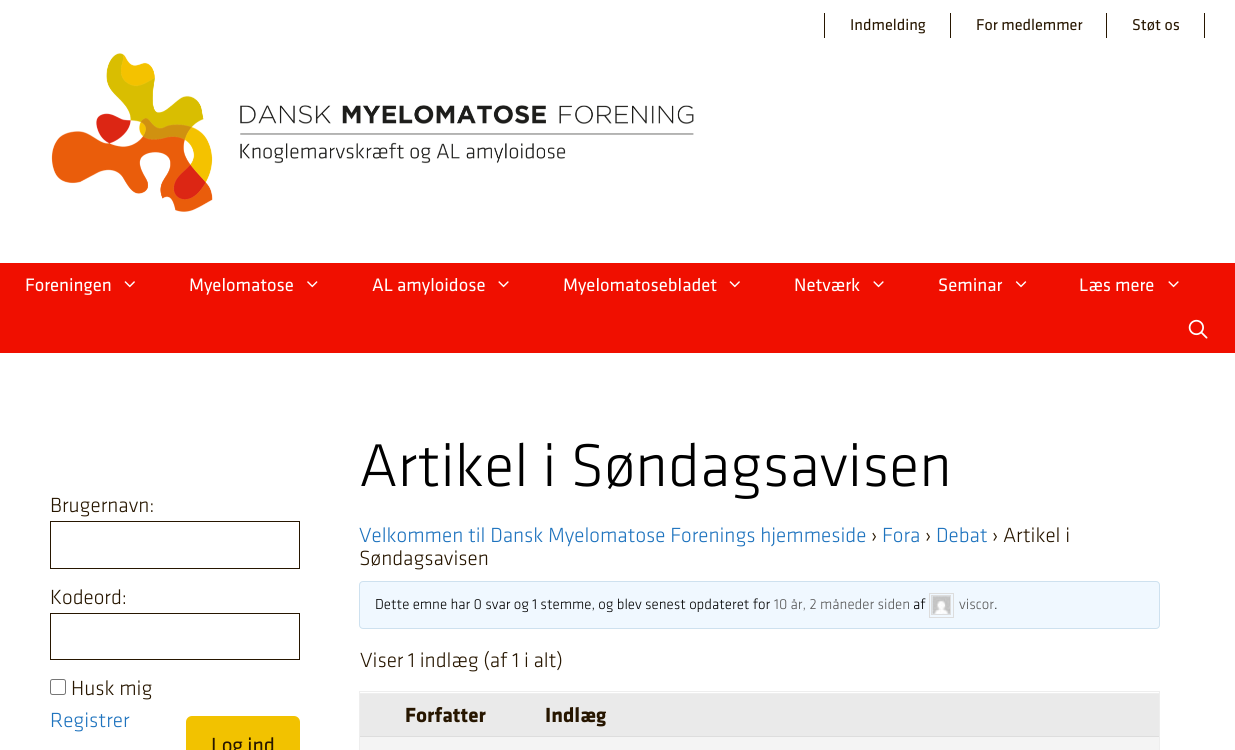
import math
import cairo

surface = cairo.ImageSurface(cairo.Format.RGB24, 1235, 750)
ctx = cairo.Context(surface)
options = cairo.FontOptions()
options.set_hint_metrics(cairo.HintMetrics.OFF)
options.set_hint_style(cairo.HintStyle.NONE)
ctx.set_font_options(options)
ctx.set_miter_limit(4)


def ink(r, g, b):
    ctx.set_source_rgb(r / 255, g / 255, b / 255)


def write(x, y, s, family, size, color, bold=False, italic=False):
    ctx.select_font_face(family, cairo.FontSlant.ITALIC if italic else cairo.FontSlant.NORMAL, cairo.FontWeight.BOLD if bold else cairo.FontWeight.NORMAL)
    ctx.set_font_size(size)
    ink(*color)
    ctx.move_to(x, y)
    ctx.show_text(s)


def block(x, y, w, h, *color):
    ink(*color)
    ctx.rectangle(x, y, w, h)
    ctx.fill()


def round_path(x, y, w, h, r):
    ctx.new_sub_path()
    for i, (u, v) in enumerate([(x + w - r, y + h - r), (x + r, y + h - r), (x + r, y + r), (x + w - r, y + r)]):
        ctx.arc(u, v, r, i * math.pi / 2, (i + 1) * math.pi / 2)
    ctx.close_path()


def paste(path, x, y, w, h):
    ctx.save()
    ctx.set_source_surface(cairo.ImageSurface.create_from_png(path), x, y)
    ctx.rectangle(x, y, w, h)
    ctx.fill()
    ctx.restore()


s1 = dict(family="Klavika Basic", size=16.25, color=(39, 22, 0))
s2 = dict(family="Klavika Basic", size=18.75, color=(255, 255, 255))
s3 = dict(family="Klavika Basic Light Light", size=21.25, color=(39, 22, 0))
s4 = dict(family="Klavika Basic Light Light", size=21.25, color=(30, 115, 190))
s5 = dict(family="Klavika Basic", size=21.25, color=(39, 22, 0))
s6 = dict(family="Klavika Basic Light Light", size=62.5, color=(0, 0, 0))
s7 = dict(family="Klavika Basic Light Light", size=15, color=(0, 0, 0))
s8 = dict(family="Klavika Basic Light Light", size=15, color=(85, 85, 85))
s9 = dict(family="Klavika Basic", size=21.25, color=(39, 22, 0), bold=True)

ink(255, 255, 255)
ctx.paint()
block(824, 13, 1, 25, 39, 22, 0)
write(850, 30, "Indmelding", **s1)
block(950, 13, 1, 25, 39, 22, 0)
write(976, 30, "For medlemmer", **s1)
block(1106, 13, 1, 25, 39, 22, 0)
write(1132, 30, "Støt os", **s1)
block(1204, 13, 1, 25, 39, 22, 0)
paste("pic1.png", 51, 53, 643, 159)
block(0, 263, 1235, 90, 240, 15, 0)
write(25, 291, "Foreningen", **s2)
paste("pic2.png", 124, 281, 11, 7)
write(189, 291, "Myelomatose", **s2)
paste("pic3.png", 307, 281, 11, 7)
write(372, 291, "AL amyloidose", **s2)
paste("pic4.png", 498, 281, 11, 7)
write(563, 291, "Myelomatosebladet", **s2)
paste("pic2.png", 729, 281, 11, 7)
write(794, 291, "Netværk", **s2)
paste("pic4.png", 873, 281, 11, 7)
write(938, 291, "Seminar", **s2)
paste("pic5.png", 1015, 281, 12, 7)
write(1079, 291, "Læs mere", **s2)
paste("pic4.png", 1168, 281, 11, 7)
paste("pic6.png", 1188, 319, 20, 20)
write(50, 512, "Brugernavn:", **s3)
ctx.rectangle(50.5, 521.5, 249, 47)
ctx.set_line_width(1)
ctx.stroke()
write(50, 604, "Kodeord:", **s3)
ctx.rectangle(50.5, 613.5, 249, 46)
ctx.stroke()
round_path(50.5, 679.5, 15, 15, 2)
ink(118, 118, 118)
ctx.stroke()
write(71, 695, "Husk mig", **s3)
write(50, 727, "Registrer", **s4)
ink(242, 194, 0)
round_path(186, 716, 114, 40, 6)
ctx.fill()
write(211, 752, "Log ind", **s5)
write(359, 486, "Artikel i Søndagsavisen", **s6)
write(359, 542, "Velkommen til Dansk Myelomatose Forenings hjemmeside", **s4)
write(871, 542, "›", **s3)
write(882, 542, "Fora", **s4)
write(925, 542, "›", **s3)
write(936, 542, "Debat", **s4)
write(992, 542, "› Artikel i", **s3)
write(359, 565, "Søndagsavisen", **s3)
ink(240, 248, 255)
round_path(359.5, 581.5, 800, 47, 3.5)
ctx.fill_preserve()
ink(206, 225, 239)
ctx.stroke()
write(375, 609, "Dette emne har 0 svar og 1 stemme, og blev senest opdateret for", **s7)
write(774, 609, "10 år, 2 måneder siden", **s8)
write(913, 609, "af", **s7)
ctx.rectangle(929.5, 593.5, 24, 24)
ink(221, 221, 221)
ctx.stroke()
ctx.rectangle(931.5, 595.5, 19, 19)
ctx.stroke()
paste("pic7.png", 932, 596, 18, 18)
write(959, 609, "viscor", **s8)
write(994, 609, ".", **s7)
write(360, 667, "Viser 1 indlæg (af 1 i alt)", **s3)
ctx.rectangle(359.5, 691.5, 800, 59)
ink(238, 238, 238)
ctx.stroke()
block(360, 694, 799, 42, 234, 234, 234)
block(360, 693, 799, 1, 238, 238, 238)
write(405, 722, "Forfatter", **s9)
write(545, 722, "Indlæg", **s9)
block(360, 737, 799, 13, 244, 244, 244)
block(360, 736, 799, 1, 221, 221, 221)
surface.write_to_png("screenshot.png")
